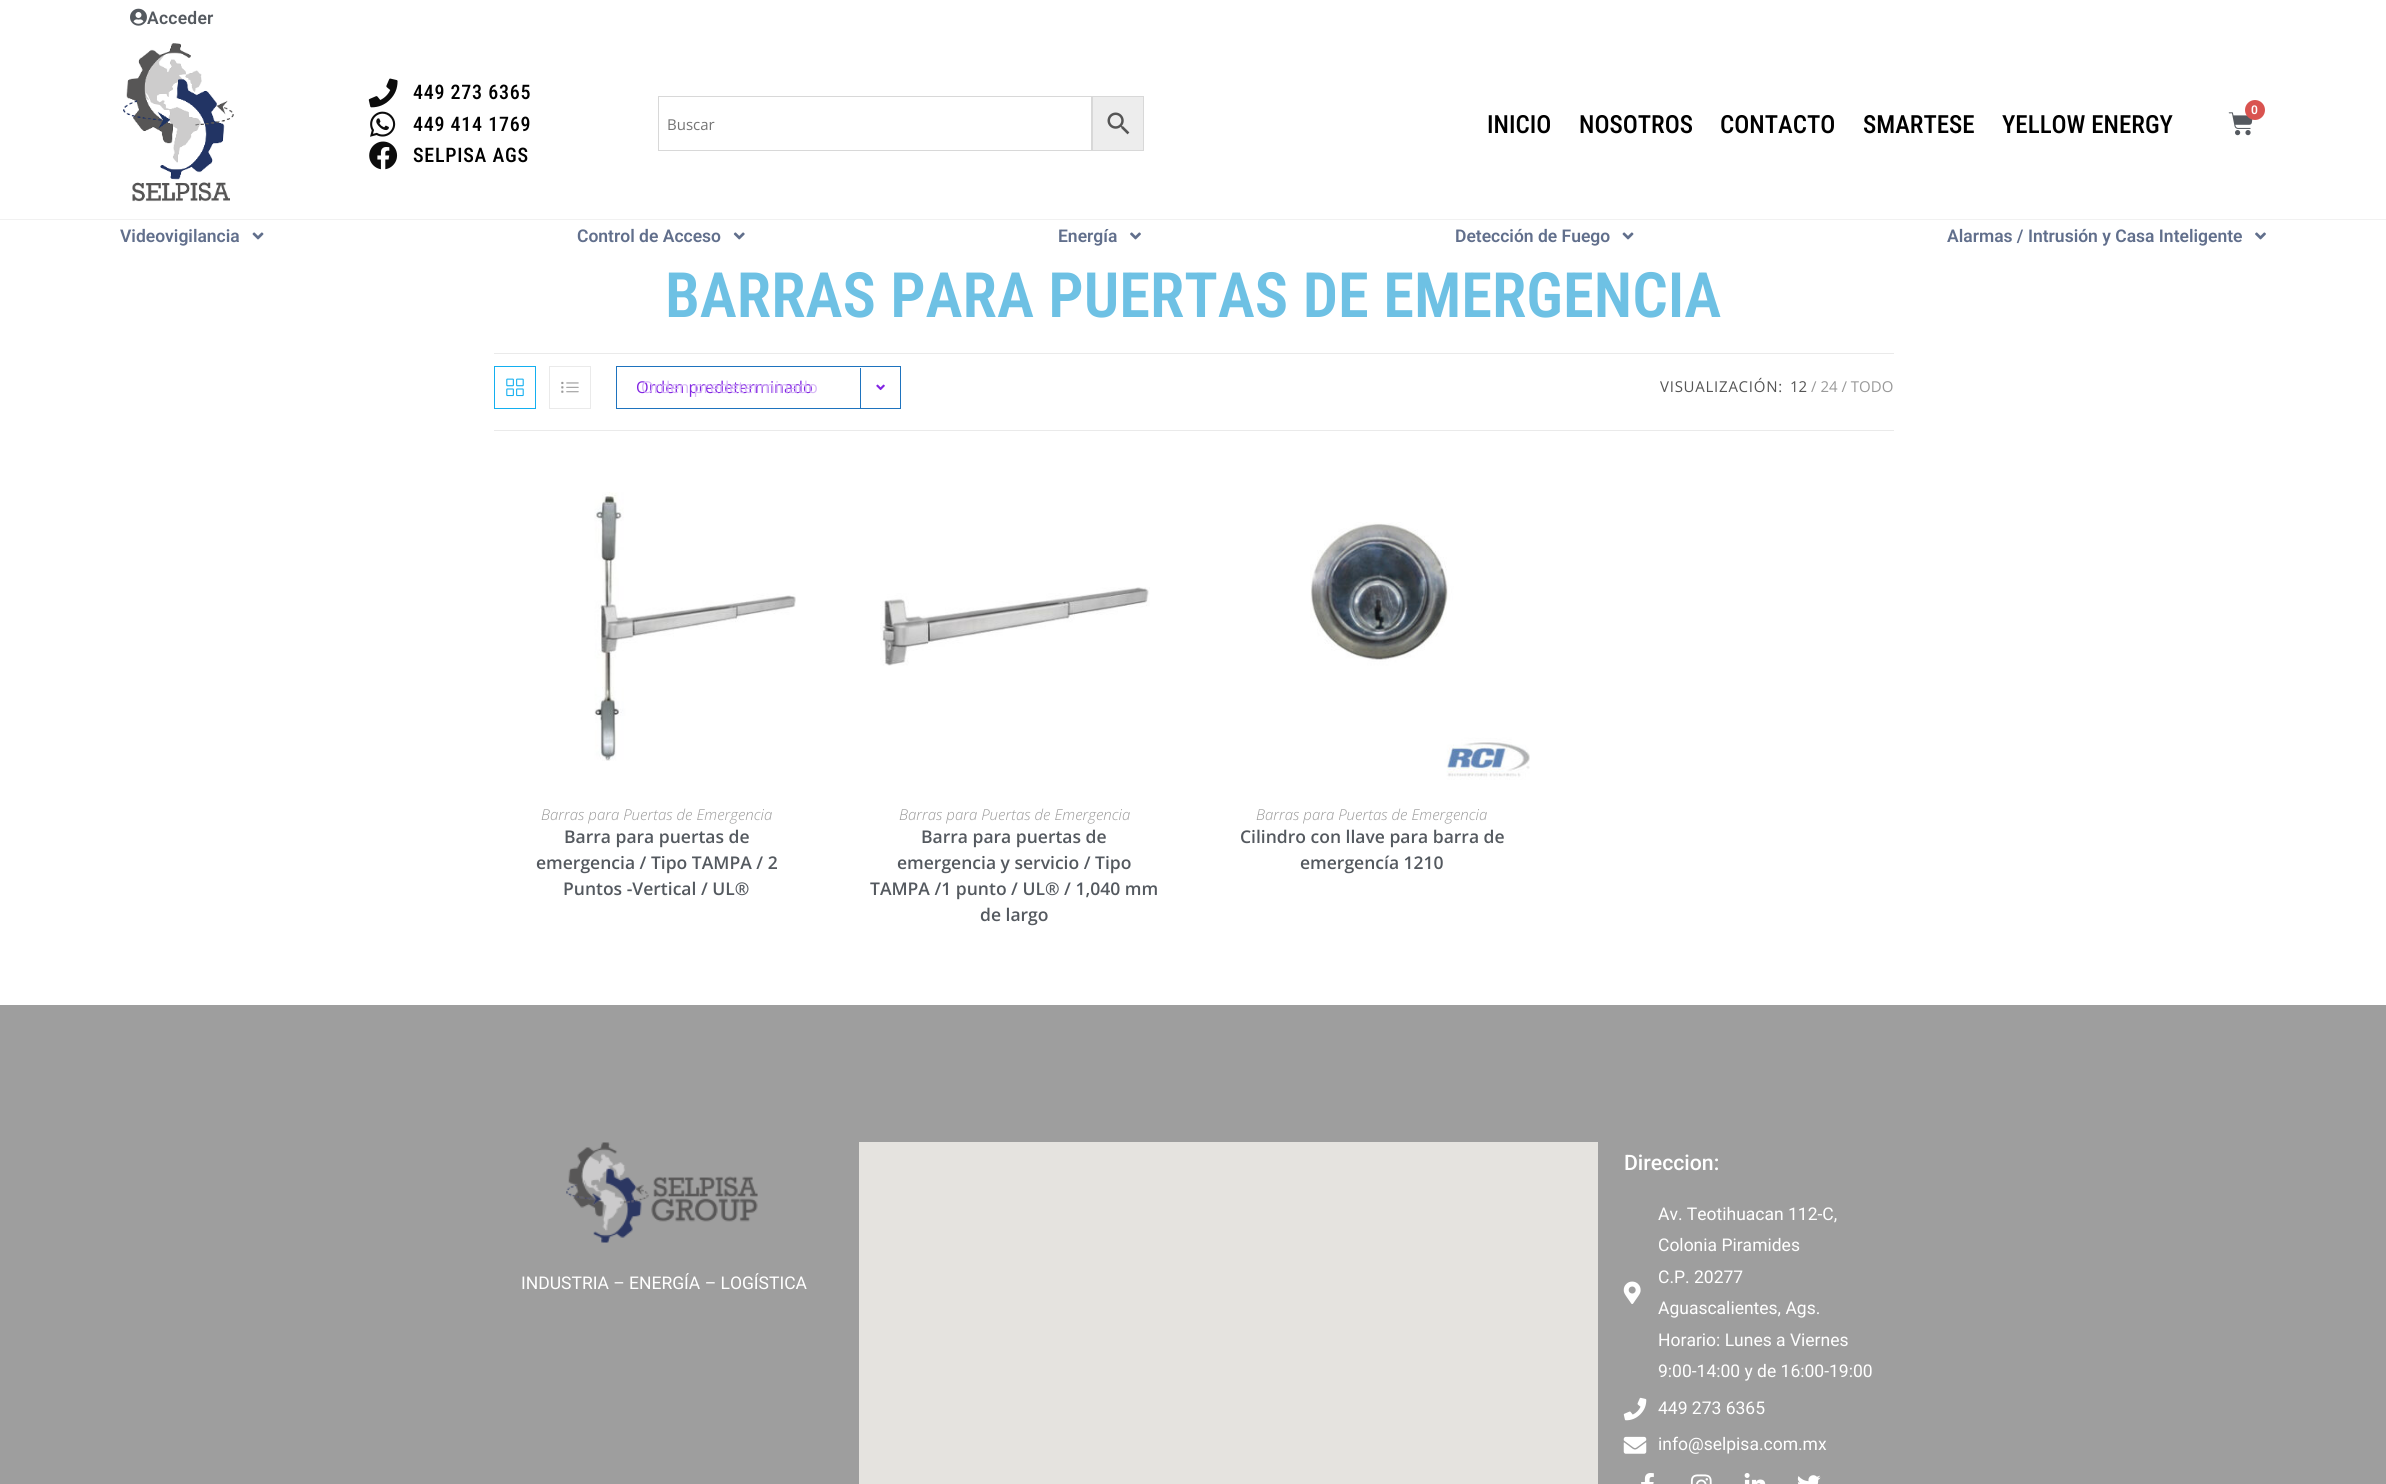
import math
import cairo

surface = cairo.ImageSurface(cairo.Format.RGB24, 2386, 1484)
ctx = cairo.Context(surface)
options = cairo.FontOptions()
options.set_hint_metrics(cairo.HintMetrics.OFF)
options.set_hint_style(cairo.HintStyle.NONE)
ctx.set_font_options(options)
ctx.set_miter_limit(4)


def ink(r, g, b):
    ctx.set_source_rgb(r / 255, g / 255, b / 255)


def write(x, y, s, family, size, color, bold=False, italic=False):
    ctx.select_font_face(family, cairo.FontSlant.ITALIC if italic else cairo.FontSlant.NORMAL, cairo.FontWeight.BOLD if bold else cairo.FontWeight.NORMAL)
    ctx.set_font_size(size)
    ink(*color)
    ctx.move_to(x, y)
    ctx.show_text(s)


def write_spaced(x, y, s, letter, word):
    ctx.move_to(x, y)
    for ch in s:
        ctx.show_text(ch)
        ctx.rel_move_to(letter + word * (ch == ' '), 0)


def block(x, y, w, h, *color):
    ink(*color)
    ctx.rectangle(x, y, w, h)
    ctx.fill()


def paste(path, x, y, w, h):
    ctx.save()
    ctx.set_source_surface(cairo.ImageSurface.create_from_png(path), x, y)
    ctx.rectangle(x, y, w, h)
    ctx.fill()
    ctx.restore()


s1 = dict(family="Roboto SemiBold", size=12, color=(255, 255, 255))
s2 = dict(family="Open Sans", size=15, color=(117, 117, 117))
s3 = dict(family="Roboto Condensed Medium", size=25, color=(0, 0, 0))
s4 = dict(family="Roboto SemiBold", size=17.5, color=(97, 111, 140))
s5 = dict(family="Roboto Condensed SemiBold", size=62.5, color=(110, 193, 228))
s6 = dict(family="Open Sans", size=16.25, color=(130, 36, 227))
s7 = dict(family="Open Sans", size=16.25, color=(215, 185, 246))
s8 = dict(family="Open Sans", size=15, color=(85, 85, 85))
s9 = dict(family="Open Sans", size=15, color=(153, 153, 153))
s10 = dict(family="Open Sans Light", size=15, color=(153, 153, 153), italic=True)
s11 = dict(family="Open Sans SemiBold", size=17.5, color=(84, 89, 95))
s12 = dict(family="Roboto", size=17.5, color=(255, 255, 255))
s13 = dict(family="Roboto Medium", size=21.25, color=(255, 255, 255))

ink(255, 255, 255)
ctx.paint()
block(0, 219, 2386, 1, 241, 241, 241)
paste("pic1.png", 130, 8, 17, 18)
ctx.select_font_face("Roboto SemiBold")
ctx.set_font_size(17.5)
ink(84, 89, 95)
write_spaced(147, 24, "Acceder", 0.25, 0)
paste("pic2.png", 123, 43, 111, 159)
paste("pic3.png", 368, 78, 30, 30)
ctx.select_font_face("Roboto Condensed Medium")
ctx.set_font_size(20)
ink(0, 0, 0)
write_spaced(413, 99, "449 273 6365", 0.75, 0)
paste("pic4.png", 370, 111, 26, 26)
write_spaced(413, 131, "449 414 1769", 0.75, 0)
paste("pic5.png", 369, 141, 29, 29)
write_spaced(413, 162, "SELPISA AGS", 0.75, 0)
paste("pic6.png", 2228, 112, 25, 24)
ink(217, 83, 79)
ctx.arc(2255, 110, 10, 0, 2 * math.pi)
ctx.fill()
write(2251, 114, "0", **s1)
block(1093, 97, 50, 53, 237, 237, 237)
ctx.rectangle(1091.5, 96.5, 52, 54)
ink(216, 216, 216)
ctx.set_line_width(1)
ctx.stroke()
ctx.rectangle(658.5, 96.5, 434, 54)
ctx.stroke()
write(667, 130, "Buscar", **s2)
paste("pic7.png", 1107, 112, 23, 23)
write(1487, 133, "INICIO", **s3)
write(1579, 133, "NOSOTROS", **s3)
write(1720, 133, "CONTACTO", **s3)
write(1863, 133, "SMARTESE", **s3)
write(2002, 133, "YELLOW ENERGY", **s3)
write(120, 242, "Videovigilancia", **s4)
paste("pic8.png", 252, 232, 12, 8)
write(577, 242, "Control de Acceso", **s4)
paste("pic9.png", 733, 232, 12, 8)
write(1058, 242, "Energía", **s4)
paste("pic10.png", 1130, 232, 11, 8)
write(1455, 242, "Detección de Fuego", **s4)
paste("pic8.png", 1622, 232, 12, 8)
write(1947, 242, "Alarmas / Intrusión y Casa Inteligente", **s4)
paste("pic10.png", 2255, 232, 11, 8)
write(665, 317, "BARRAS PARA PUERTAS DE EMERGENCIA", **s5)
block(494, 353, 1400, 1, 234, 234, 234)
block(494, 430, 1400, 1, 234, 234, 234)
ctx.rectangle(494.5, 366.5, 41, 42)
ink(19, 175, 240)
ctx.stroke()
paste("pic11.png", 506, 378, 18, 19)
ctx.rectangle(549.5, 366.5, 41, 42)
ink(234, 234, 234)
ctx.stroke()
paste("pic12.png", 561, 381, 18, 12)
ctx.rectangle(616.5, 366.5, 284, 42)
ink(30, 115, 190)
ctx.stroke()
write(636, 393, "Orden predeterminado", **s6)
block(860, 368, 1, 40, 30, 115, 190)
paste("pic13.png", 876, 384, 9, 7)
write(641, 393, "Orden predeterminado", **s7)
ctx.set_font_size(15)
ink(85, 85, 85)
write_spaced(1660, 392, "VISUALIZACIÓN:", 0.75, 0)
write(1790, 392, "12", **s8)
write(1811, 392, "/ 24 / TODO", **s9)
paste("pic14.png", 594, 492, 202, 269)
write(541, 820, "Barras para Puertas de Emergencia", **s10)
write(564, 843, "Barra para puertas de", **s11)
write(536, 869, "emergencia / Tipo TAMPA / 2", **s11)
write(563, 895, "Puntos -Vertical / UL®", **s11)
paste("pic15.png", 880, 587, 270, 79)
write(899, 820, "Barras para Puertas de Emergencia", **s10)
write(921, 843, "Barra para puertas de", **s11)
write(897, 869, "emergencia y servicio / Tipo", **s11)
write(870, 895, "TAMPA /1 punto / UL® / 1,040 mm", **s11)
write(980, 921, "de largo", **s11)
paste("pic16.png", 1310, 522, 220, 258)
write(1256, 820, "Barras para Puertas de Emergencia", **s10)
write(1240, 843, "Cilindro con llave para barra de", **s11)
write(1300, 869, "emergencía 1210", **s11)
block(0, 1005, 2386, 479, 158, 158, 158)
paste("pic17.png", 566, 1142, 192, 101)
write(521, 1289, "INDUSTRIA – ENERGÍA – LOGÍSTICA", **s12)
block(859, 1142, 739, 342, 229, 227, 223)
write(1624, 1170, "Direccion:", **s13)
paste("pic18.png", 1623, 1281, 18, 23)
write(1658, 1220, "Av. Teotihuacan 112-C,", **s12)
write(1658, 1251, "Colonia Piramides", **s12)
write(1658, 1283, "C.P. 20277", **s12)
write(1658, 1314, "Aguascalientes, Ags.", **s12)
write(1658, 1346, "Horario: Lunes a Viernes", **s12)
write(1658, 1377, "9:00-14:00 y de 16:00-19:00", **s12)
paste("pic19.png", 1623, 1397, 24, 24)
write(1658, 1414, "449 273 6365", **s12)
paste("pic20.png", 1623, 1436, 24, 18)
write(1658, 1450, "info@selpisa.com.mx", **s12)
paste("pic21.png", 1641, 1473, 13, 11)
paste("pic22.png", 1690, 1474, 22, 10)
paste("pic23.png", 1744, 1473, 22, 11)
paste("pic24.png", 1797, 1475, 24, 9)
surface.write_to_png("screenshot.png")
